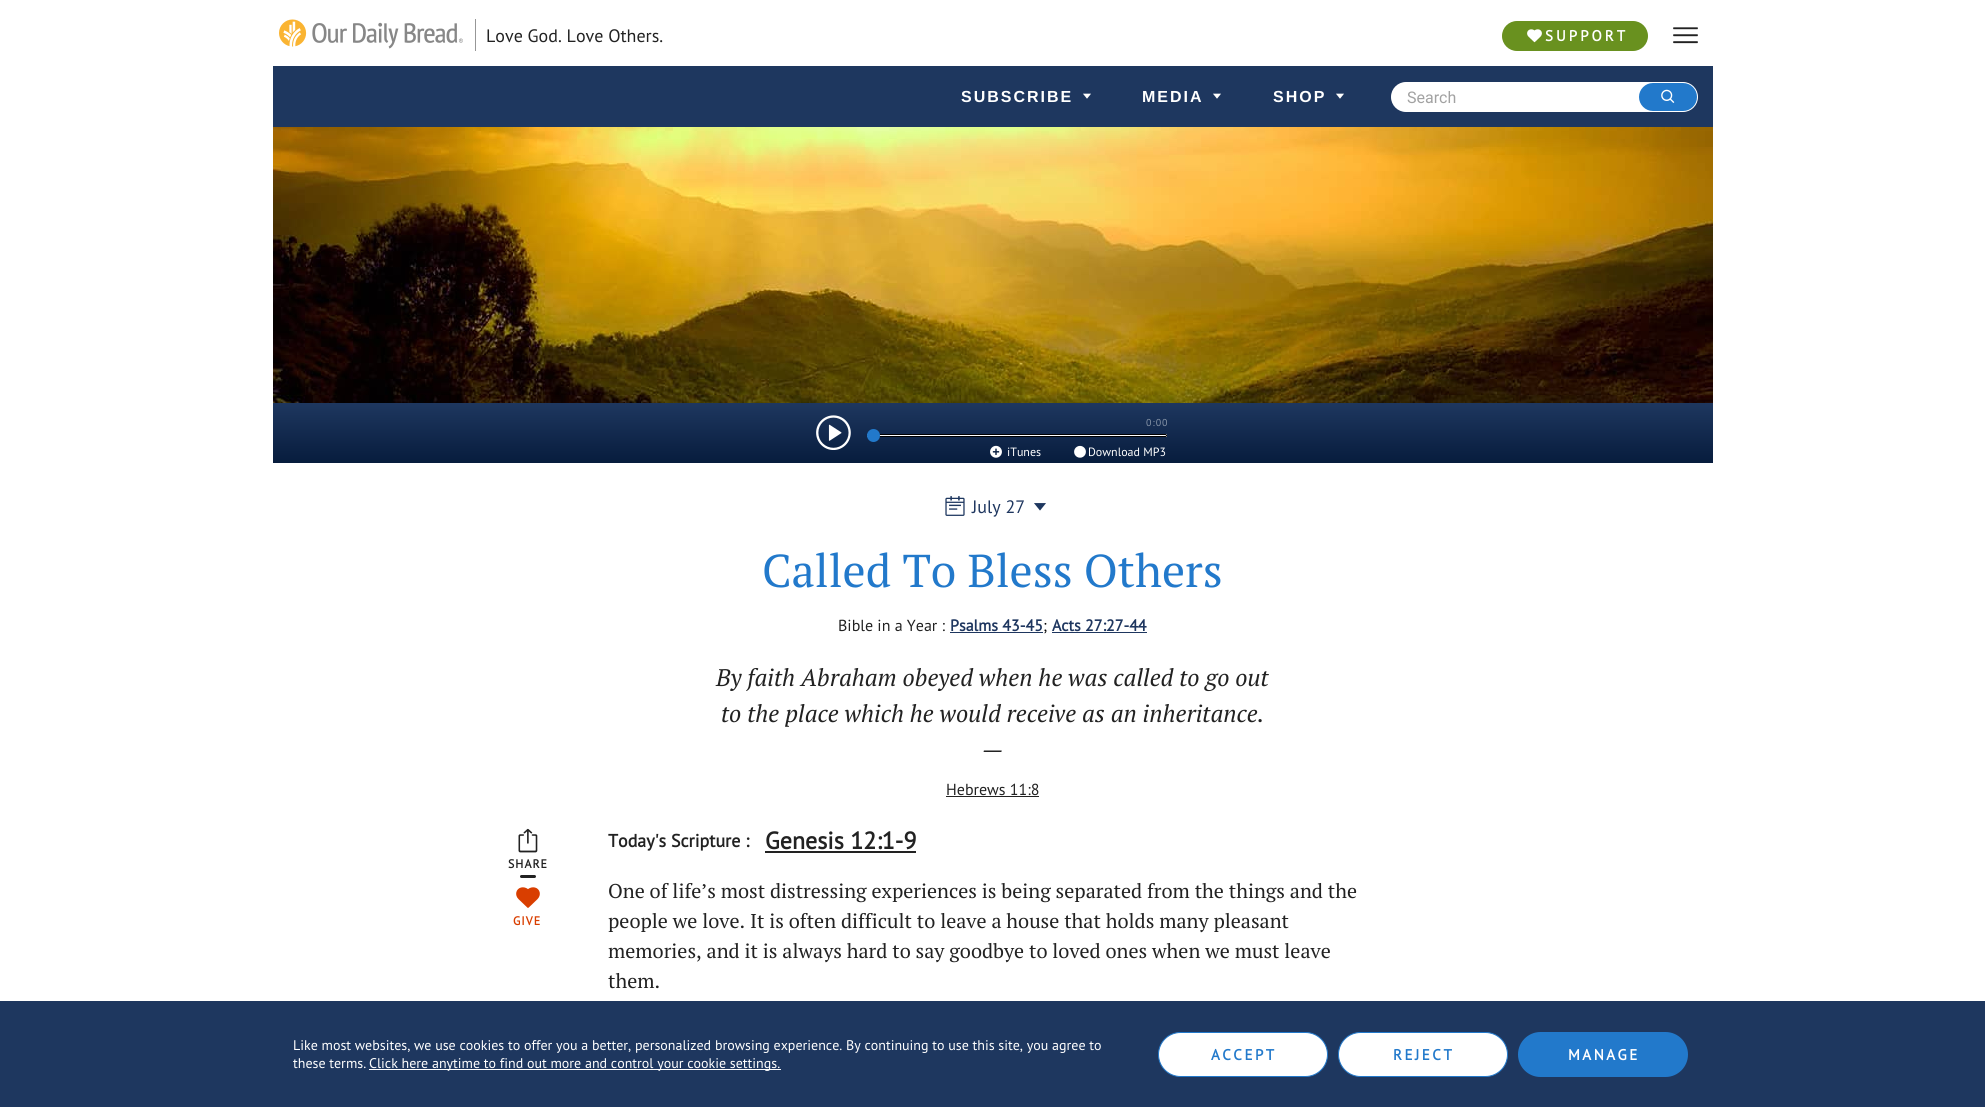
import math
import cairo

surface = cairo.ImageSurface(cairo.Format.RGB24, 1985, 1107)
ctx = cairo.Context(surface)
options = cairo.FontOptions()
options.set_hint_metrics(cairo.HintMetrics.OFF)
options.set_hint_style(cairo.HintStyle.NONE)
ctx.set_font_options(options)
ctx.set_miter_limit(4)


def ink(r, g, b):
    ctx.set_source_rgb(r / 255, g / 255, b / 255)


def write(x, y, s, family, size, color, bold=False, italic=False):
    ctx.select_font_face(family, cairo.FontSlant.ITALIC if italic else cairo.FontSlant.NORMAL, cairo.FontWeight.BOLD if bold else cairo.FontWeight.NORMAL)
    ctx.set_font_size(size)
    ink(*color)
    ctx.move_to(x, y)
    ctx.show_text(s)


def write_spaced(x, y, s, letter, word):
    ctx.move_to(x, y)
    for ch in s:
        ctx.show_text(ch)
        ctx.rel_move_to(letter + word * (ch == ' '), 0)


def block(x, y, w, h, *color):
    ink(*color)
    ctx.rectangle(x, y, w, h)
    ctx.fill()


def round_path(x, y, w, h, r):
    ctx.new_sub_path()
    for i, (u, v) in enumerate([(x + w - r, y + h - r), (x + r, y + h - r), (x + r, y + r), (x + w - r, y + r)]):
        ctx.arc(u, v, r, i * math.pi / 2, (i + 1) * math.pi / 2)
    ctx.close_path()


def paste(path, x, y, w, h):
    ctx.save()
    ctx.set_source_surface(cairo.ImageSurface.create_from_png(path), x, y)
    ctx.rectangle(x, y, w, h)
    ctx.fill()
    ctx.restore()


s1 = dict(family="PT Sans", size=18, color=(34, 34, 34))
s2 = dict(family="Roboto", size=16, color=(162, 162, 162))
s3 = dict(family="PT Sans", size=12, color=(255, 255, 255))
s4 = dict(family="PT Sans", size=18, color=(30, 54, 95))
s5 = dict(family="PT Serif", size=46, color=(34, 121, 203))
s6 = dict(family="PT Sans", size=16, color=(34, 34, 34))
s7 = dict(family="PT Sans", size=16, color=(30, 54, 95), bold=True)
s8 = dict(family="PT Sans", size=16, color=(0, 0, 0))
s9 = dict(family="PT Serif", size=24, color=(34, 34, 34), italic=True)
s10 = dict(family="PT Sans", size=18, color=(34, 34, 34), bold=True)
s11 = dict(family="PT Sans", size=24, color=(34, 34, 34), bold=True)
s12 = dict(family="PT Serif", size=20, color=(34, 34, 34))
s13 = dict(family="PT Sans", size=14, color=(255, 255, 255))

ink(255, 255, 255)
ctx.paint()
block(475, 19, 1, 32, 151, 151, 151)
paste("pic1.png", 279, 19, 184, 30)
write(486, 42, "Love God. Love Others.", **s1)
ink(105, 145, 31)
round_path(1502, 21, 146, 30, 15)
ctx.fill()
paste("pic2.png", 1527, 29, 15, 14)
ctx.select_font_face("PT Sans", cairo.FontSlant.NORMAL, cairo.FontWeight.BOLD)
ctx.set_font_size(15)
ink(255, 255, 255)
write_spaced(1545, 41, "SUPPORT", 3, 0)
paste("pic3.png", 1673, 27, 25, 17)
block(273, 66, 1440, 61, 30, 55, 95)
ctx.select_font_face("Liberation Sans", cairo.FontSlant.NORMAL, cairo.FontWeight.BOLD)
ctx.set_font_size(16)
ink(255, 255, 255)
write_spaced(961, 102, "SUBSCRIBE", 2, 0)
paste("pic4.png", 1083, 93, 8, 6)
write_spaced(1142, 102, "MEDIA", 2, 0)
paste("pic4.png", 1213, 93, 8, 6)
write_spaced(1273, 102, "SHOP", 2, 0)
paste("pic4.png", 1336, 93, 8, 6)
round_path(1391, 82, 307, 30, 15)
ctx.fill()
write(1407, 103, "Search", **s2)
ink(34, 121, 203)
round_path(1639, 83, 58, 28, 14)
ctx.fill()
paste("pic5.png", 1661, 89, 14, 14)
paste("pic6.png", 273, 127, 1440, 276)
gradient = cairo.LinearGradient(993, 403, 993, 463)
gradient.add_color_stop_rgba(0, 0.118, 0.216, 0.373, 1)
gradient.add_color_stop_rgba(1, 0.027, 0.11, 0.239, 1)
ctx.set_source(gradient)
ctx.rectangle(273, 403, 1440, 60)
ctx.fill()
paste("pic7.png", 816, 415, 35, 35)
ctx.select_font_face("PT Sans")
ctx.set_font_size(10)
ink(136, 149, 168)
write_spaced(1146, 426, "0:00", 1, 0)
block(867, 434, 300, 3, 255, 255, 255)
round_path(867.5, 434.5, 299, 2, 1)
ink(1, 1, 1)
ctx.set_line_width(1)
ctx.stroke()
ink(34, 121, 203)
ctx.arc(873.5, 435.5, 6.5, 0, 2 * math.pi)
ctx.fill()
paste("pic8.png", 990, 445, 12, 13)
write(1007, 456, "iTunes", **s3)
paste("pic9.png", 1074, 445, 12, 13)
write(1088, 456, "Download MP3", **s3)
paste("pic10.png", 945, 496, 20, 20)
write(972, 513, "July 27", **s4)
paste("pic11.png", 1034, 503, 12, 8)
write(762, 587, "Called To Bless Others", **s5)
write(838, 631, "Bible in a Year :", **s6)
write(950, 631, "Psalms 43-45", **s7)
block(950, 632, 93, 1, 30, 54, 95)
write(1043, 631, ";", **s8)
write(1052, 631, "Acts 27:27-44", **s7)
block(1052, 632, 95, 1, 30, 54, 95)
write(716, 686, "By faith Abraham obeyed when he was called to go out", **s9)
write(721, 722, "to the place which he would receive as an inheritance.", **s9)
write(982, 758, "—", **s9)
write(946, 795, "Hebrews 11:8", **s6)
block(946, 796, 93, 1, 34, 34, 34)
write(608, 847, "Today's Scripture :", **s10)
write(765, 849, "Genesis 12:1-9", **s11)
block(765, 851, 151, 2, 34, 34, 34)
paste("pic12.png", 518, 828, 20, 25)
ctx.set_font_size(12)
write_spaced(508, 868, "SHARE", 1, 0)
round_path(520, 875, 16, 3, 1.5)
ctx.fill()
paste("pic13.png", 516, 887, 24, 21)
ink(217, 62, 0)
write_spaced(513, 925, "GIVE", 1, 0)
write(608, 898, "One of life’s most distressing experiences is being separated from the things and the", **s12)
write(608, 928, "people we love. It is often difficult to leave a house that holds many pleasant", **s12)
write(608, 958, "memories, and it is always hard to say goodbye to loved ones when we must leave", **s12)
write(608, 988, "them.", **s12)
block(0, 1001, 1985, 106, 30, 55, 95)
write(293, 1050, "Like most websites, we use cookies to offer you a better, personalized browsing experience. By continuing to use this site, you agree to", **s13)
write(293, 1068, "these terms.", **s13)
block(369, 1069, 412, 1, 255, 255, 255)
write(369, 1068, "Click here anytime to find out more and control your cookie settings.", **s13)
round_path(1158.5, 1032.5, 169, 44, 22)
ctx.fill_preserve()
ink(34, 121, 203)
ctx.stroke()
ctx.select_font_face("PT Sans", cairo.FontSlant.NORMAL, cairo.FontWeight.BOLD)
ctx.set_font_size(15)
write_spaced(1211, 1060, "ACCEPT", 2.5, 0)
ink(255, 255, 255)
round_path(1338.5, 1032.5, 169, 44, 22)
ctx.fill_preserve()
ink(34, 121, 203)
ctx.stroke()
write_spaced(1393, 1060, "REJECT", 2.5, 0)
round_path(1518, 1032, 170, 45, 22.5)
ctx.fill()
ink(255, 255, 255)
write_spaced(1568, 1060, "MANAGE", 2.5, 0)
surface.write_to_png("screenshot.png")
